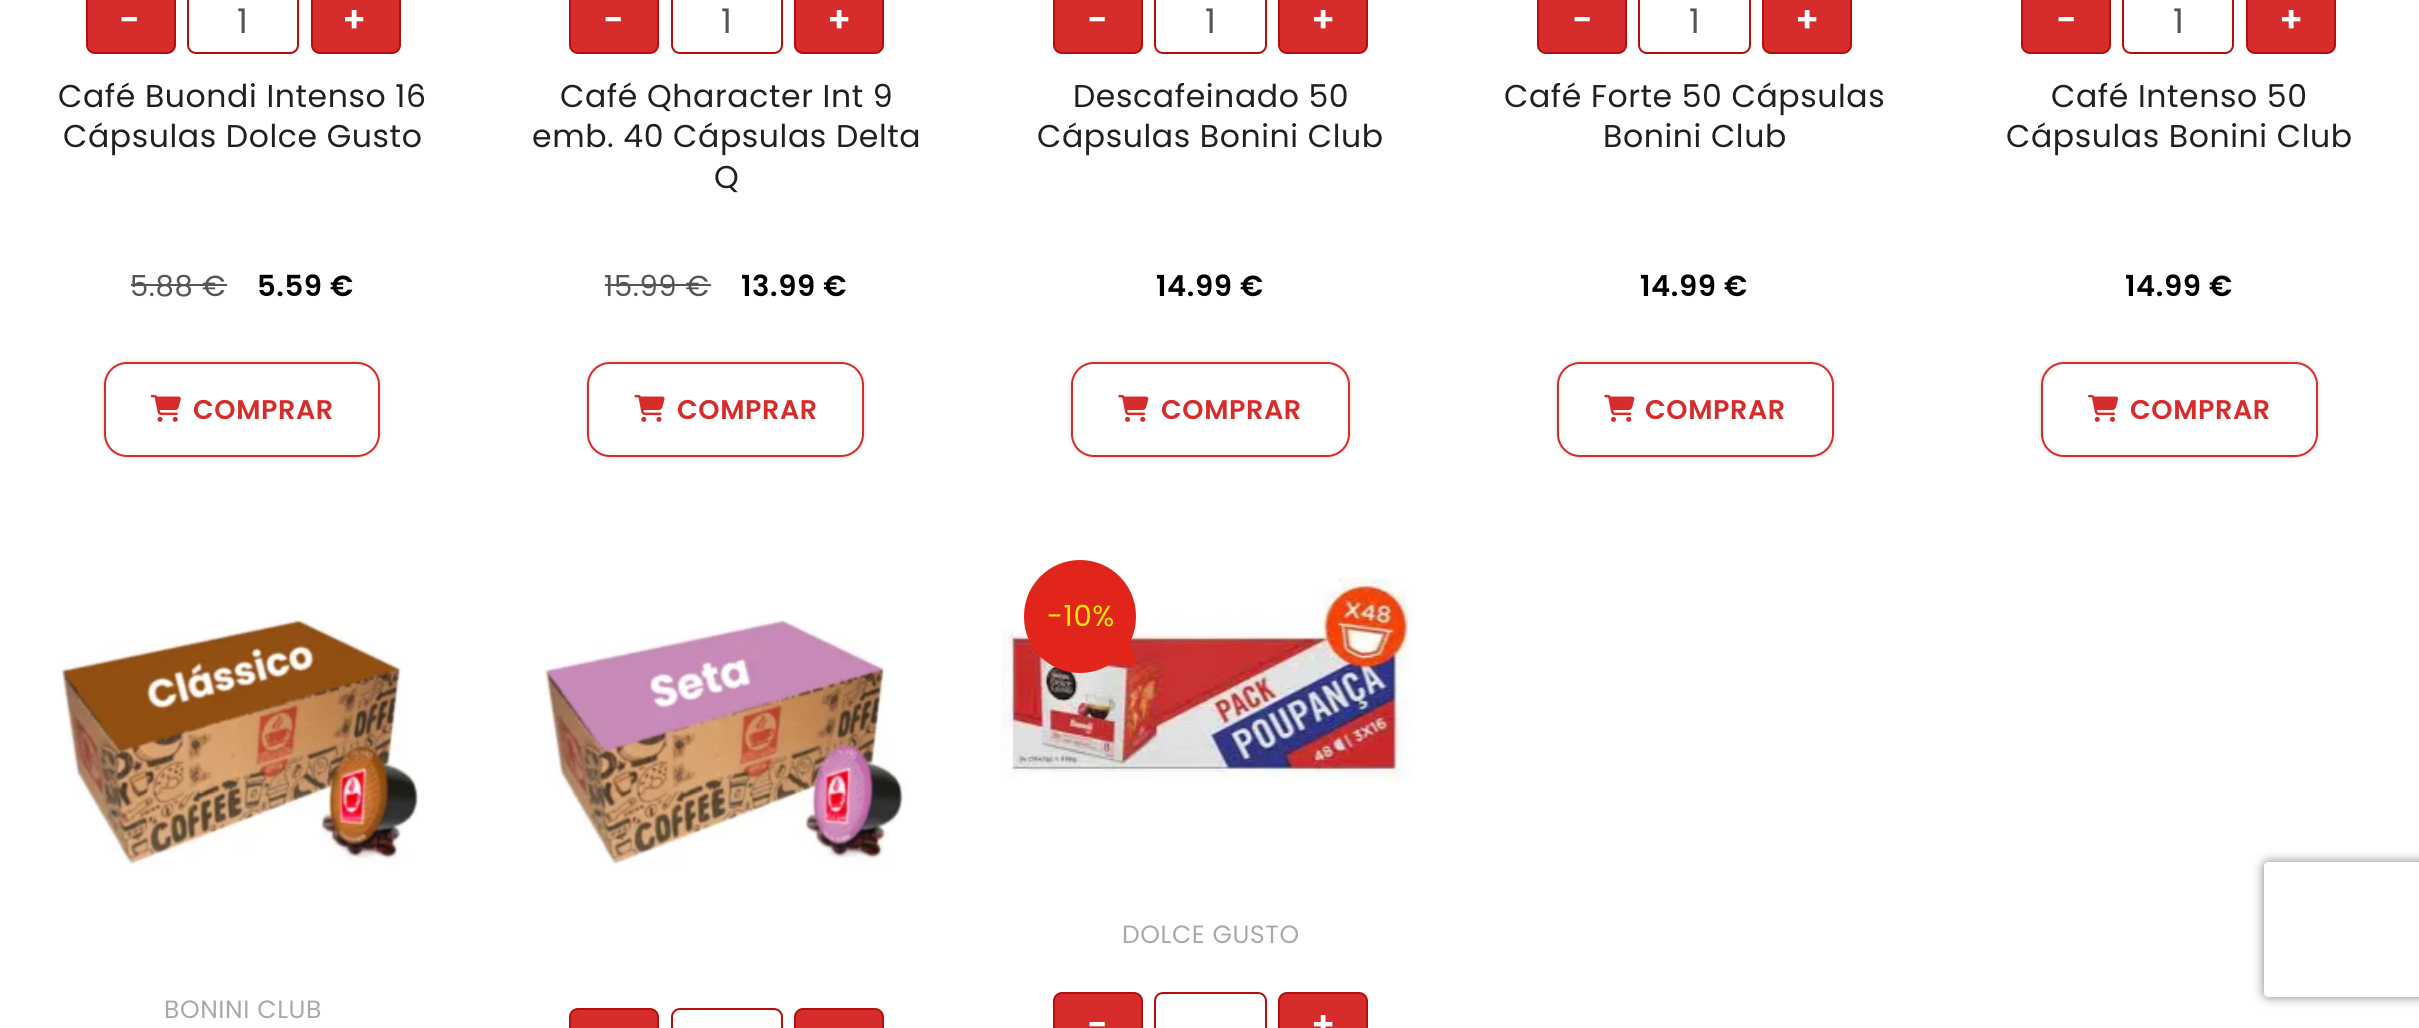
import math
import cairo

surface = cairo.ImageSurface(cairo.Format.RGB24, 2419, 1028)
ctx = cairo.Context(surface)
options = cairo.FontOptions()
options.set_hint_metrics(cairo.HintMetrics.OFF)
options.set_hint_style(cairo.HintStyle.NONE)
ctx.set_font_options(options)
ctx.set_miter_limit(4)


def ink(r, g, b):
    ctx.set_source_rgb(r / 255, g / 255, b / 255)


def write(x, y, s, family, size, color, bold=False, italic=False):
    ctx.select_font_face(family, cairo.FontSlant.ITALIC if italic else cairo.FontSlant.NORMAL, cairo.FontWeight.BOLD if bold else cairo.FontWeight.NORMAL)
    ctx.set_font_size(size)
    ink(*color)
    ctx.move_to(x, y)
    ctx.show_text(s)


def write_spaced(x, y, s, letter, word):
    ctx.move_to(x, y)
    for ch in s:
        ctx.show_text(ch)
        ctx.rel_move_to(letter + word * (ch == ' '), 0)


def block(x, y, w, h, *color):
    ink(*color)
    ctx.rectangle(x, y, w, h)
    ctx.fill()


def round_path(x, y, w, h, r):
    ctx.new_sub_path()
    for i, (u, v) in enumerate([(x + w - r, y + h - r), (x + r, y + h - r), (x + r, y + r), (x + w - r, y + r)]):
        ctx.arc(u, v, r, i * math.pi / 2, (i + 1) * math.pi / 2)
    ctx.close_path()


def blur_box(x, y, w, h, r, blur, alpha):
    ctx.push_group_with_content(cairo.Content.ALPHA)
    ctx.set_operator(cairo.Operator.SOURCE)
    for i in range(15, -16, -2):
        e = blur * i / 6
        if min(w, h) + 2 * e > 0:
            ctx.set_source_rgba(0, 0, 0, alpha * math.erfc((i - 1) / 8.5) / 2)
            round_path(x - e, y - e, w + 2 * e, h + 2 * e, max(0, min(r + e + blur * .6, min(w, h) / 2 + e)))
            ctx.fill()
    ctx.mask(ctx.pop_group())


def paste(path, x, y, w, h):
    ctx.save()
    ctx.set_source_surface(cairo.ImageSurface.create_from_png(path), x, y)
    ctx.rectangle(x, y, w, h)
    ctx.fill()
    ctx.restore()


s1 = dict(family="Poppins SemiBold", size=36, color=(255, 255, 255))
s2 = dict(family="Poppins", size=34, color=(85, 85, 85))

ink(255, 255, 255)
ctx.paint()
ink(214, 44, 44)
round_path(87, -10, 88, 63, 8)
ctx.fill_preserve()
ink(181, 14, 14)
ctx.stroke()
write(119, 32, "-", **s1)
round_path(188, -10, 110, 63, 8)
ink(181, 14, 14)
ctx.stroke()
write(237, 33, "1", **s2)
ink(214, 44, 44)
round_path(312, -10, 88, 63, 8)
ctx.fill_preserve()
ink(181, 14, 14)
ctx.stroke()
write(342, 32, "+", **s1)
ctx.select_font_face("Poppins")
ctx.set_font_size(31.5)
ink(32, 32, 32)
write_spaced(58, 107, "Café Buondi Intenso 16", 0.6, 0)
write_spaced(63, 147, "Cápsulas Dolce Gusto", 0.6, 0)
ctx.set_font_size(29)
ink(85, 85, 85)
write_spaced(130, 296, "5.88", 0.6, 0)
block(131, 284, 72, 2, 85, 85, 85)
write_spaced(202, 296, "€", 0.6, 0)
block(203, 284, 24, 2, 85, 85, 85)
ctx.select_font_face("Poppins SemiBold")
ink(0, 0, 0)
write_spaced(257, 296, "5.59 €", 0.6, 0)
ink(155, 155, 155)
blur_box(104, 362, 276, 95, 23, 2, 0.5)
ink(255, 255, 255)
round_path(105, 363, 274, 93, 22)
ctx.fill_preserve()
ink(214, 44, 44)
ctx.stroke()
paste("pic1.png", 150, 394, 31, 28)
ctx.set_font_size(27)
write_spaced(193, 419, "COMPRAR", 0.6, 0)
round_path(570, -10, 88, 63, 8)
ctx.fill_preserve()
ink(181, 14, 14)
ctx.stroke()
write(603, 32, "-", **s1)
round_path(672, -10, 110, 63, 8)
ink(181, 14, 14)
ctx.stroke()
write(721, 33, "1", **s2)
ink(214, 44, 44)
round_path(795, -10, 88, 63, 8)
ctx.fill_preserve()
ink(181, 14, 14)
ctx.stroke()
write(827, 32, "+", **s1)
ctx.select_font_face("Poppins")
ctx.set_font_size(31.5)
ink(32, 32, 32)
write_spaced(560, 107, "Café Qharacter Int 9", 0.6, 0)
write_spaced(532, 147, "emb. 40 Cápsulas Delta", 0.6, 0)
write_spaced(714, 188, "Q", 0.6, 0)
ctx.set_font_size(29)
ink(85, 85, 85)
write_spaced(604, 296, "15.99 €", 0.6, 0)
block(605, 284, 106, 2, 85, 85, 85)
ctx.select_font_face("Poppins SemiBold")
ink(0, 0, 0)
write_spaced(741, 296, "13.99 €", 0.6, 0)
ink(155, 155, 155)
blur_box(587, 362, 277, 95, 23, 2, 0.5)
ink(255, 255, 255)
round_path(588, 363, 275, 93, 22)
ctx.fill_preserve()
ink(214, 44, 44)
ctx.stroke()
paste("pic2.png", 634, 394, 31, 28)
ctx.set_font_size(27)
write_spaced(677, 419, "COMPRAR", 0.6, 0)
round_path(1054, -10, 88, 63, 8)
ctx.fill_preserve()
ink(181, 14, 14)
ctx.stroke()
write(1087, 32, "-", **s1)
round_path(1155, -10, 111, 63, 8)
ink(181, 14, 14)
ctx.stroke()
write(1205, 33, "1", **s2)
ink(214, 44, 44)
round_path(1279, -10, 88, 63, 8)
ctx.fill_preserve()
ink(181, 14, 14)
ctx.stroke()
write(1311, 32, "+", **s1)
ctx.select_font_face("Poppins")
ctx.set_font_size(31.5)
ink(32, 32, 32)
write_spaced(1073, 107, "Descafeinado 50", 0.6, 0)
write_spaced(1037, 147, "Cápsulas Bonini Club", 0.6, 0)
ctx.select_font_face("Poppins SemiBold")
ctx.set_font_size(29)
ink(0, 0, 0)
write_spaced(1156, 296, "14.99 €", 0.6, 0)
ink(155, 155, 155)
blur_box(1071, 362, 279, 95, 23, 2, 0.5)
ink(255, 255, 255)
round_path(1072, 363, 277, 93, 22)
ctx.fill_preserve()
ink(214, 44, 44)
ctx.stroke()
paste("pic3.png", 1118, 394, 31, 28)
ctx.set_font_size(27)
write_spaced(1161, 419, "COMPRAR", 0.6, 0)
round_path(1538, -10, 88, 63, 8)
ctx.fill_preserve()
ink(181, 14, 14)
ctx.stroke()
write(1572, 32, "-", **s1)
round_path(1639, -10, 111, 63, 8)
ink(181, 14, 14)
ctx.stroke()
write(1689, 33, "1", **s2)
ink(214, 44, 44)
round_path(1763, -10, 88, 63, 8)
ctx.fill_preserve()
ink(181, 14, 14)
ctx.stroke()
write(1795, 32, "+", **s1)
ctx.select_font_face("Poppins")
ctx.set_font_size(31.5)
ink(32, 32, 32)
write_spaced(1504, 107, "Café Forte 50 Cápsulas", 0.6, 0)
write_spaced(1603, 147, "Bonini Club", 0.6, 0)
ctx.select_font_face("Poppins SemiBold")
ctx.set_font_size(29)
ink(0, 0, 0)
write_spaced(1640, 296, "14.99 €", 0.6, 0)
ink(155, 155, 155)
blur_box(1557, 362, 277, 95, 23, 2, 0.5)
ink(255, 255, 255)
round_path(1558, 363, 275, 93, 22)
ctx.fill_preserve()
ink(214, 44, 44)
ctx.stroke()
paste("pic3.png", 1604, 394, 31, 28)
ctx.set_font_size(27)
write_spaced(1645, 419, "COMPRAR", 0.6, 0)
round_path(2022, -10, 88, 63, 8)
ctx.fill_preserve()
ink(181, 14, 14)
ctx.stroke()
write(2056, 32, "-", **s1)
round_path(2123, -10, 110, 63, 8)
ink(181, 14, 14)
ctx.stroke()
write(2173, 33, "1", **s2)
ink(214, 44, 44)
round_path(2247, -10, 88, 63, 8)
ctx.fill_preserve()
ink(181, 14, 14)
ctx.stroke()
write(2279, 32, "+", **s1)
ctx.select_font_face("Poppins")
ctx.set_font_size(31.5)
ink(32, 32, 32)
write_spaced(2051, 107, "Café Intenso 50", 0.6, 0)
write_spaced(2006, 147, "Cápsulas Bonini Club", 0.6, 0)
ctx.select_font_face("Poppins SemiBold")
ctx.set_font_size(29)
ink(0, 0, 0)
write_spaced(2125, 296, "14.99 €", 0.6, 0)
ink(155, 155, 155)
blur_box(2041, 362, 277, 95, 23, 2, 0.5)
ink(255, 255, 255)
round_path(2042, 363, 275, 93, 22)
ctx.fill_preserve()
ink(214, 44, 44)
ctx.stroke()
paste("pic4.png", 2088, 394, 31, 28)
ctx.set_font_size(27)
write_spaced(2130, 419, "COMPRAR", 0.6, 0)
paste("pic5.png", 60, 616, 359, 249)
ctx.select_font_face("Poppins")
ctx.set_font_size(25)
ink(169, 169, 169)
write_spaced(164, 1018, "BONINI CLUB", 0.6, 0)
paste("pic6.png", 544, 619, 362, 246)
ink(214, 44, 44)
round_path(570, 1009, 88, 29, 8)
ctx.fill_preserve()
ink(181, 14, 14)
ctx.stroke()
round_path(672, 1009, 110, 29, 8)
ctx.stroke()
ink(214, 44, 44)
round_path(795, 1009, 88, 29, 8)
ctx.fill_preserve()
ink(181, 14, 14)
ctx.stroke()
paste("pic7.png", 1001, 577, 412, 205)
ink(225, 37, 27)
round_path(1024, 560, 112, 113, 56)
ctx.fill()
ctx.set_font_size(29)
ink(255, 231, 0)
write_spaced(1047, 626, "-10%", 0.6, 0)
ink(225, 37, 27)
ctx.new_path()
ctx.move_to(1107, 663.5)
ctx.line_to(1129, 641)
ctx.line_to(1137, 665)
ctx.close_path()
ctx.fill()
ctx.set_font_size(25)
ink(169, 169, 169)
write_spaced(1122, 943, "DOLCE GUSTO", 0.6, 0)
ink(214, 44, 44)
round_path(1054, 993, 88, 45, 8)
ctx.fill_preserve()
ink(181, 14, 14)
ctx.stroke()
write(1087, 1037, "-", **s1)
round_path(1155, 993, 111, 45, 8)
ink(181, 14, 14)
ctx.stroke()
ink(214, 44, 44)
round_path(1279, 993, 88, 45, 8)
ctx.fill_preserve()
ink(181, 14, 14)
ctx.stroke()
write(1311, 1037, "+", **s1)
ctx.save()
ctx.set_fill_rule(cairo.FillRule.EVEN_ODD)
ctx.new_path()
ctx.move_to(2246, 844)
ctx.line_to(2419, 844)
ctx.line_to(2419, 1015)
ctx.line_to(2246, 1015)
ctx.close_path()
ctx.move_to(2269, 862)
ctx.line_to(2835, 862)
ctx.curve_to(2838, 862, 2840, 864, 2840, 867)
ctx.line_to(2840, 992)
ctx.curve_to(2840, 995, 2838, 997, 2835, 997)
ctx.line_to(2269, 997)
ctx.curve_to(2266, 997, 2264, 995, 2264, 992)
ctx.line_to(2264, 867)
ctx.curve_to(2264, 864, 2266, 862, 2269, 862)
ctx.close_path()
ctx.clip()
ink(128, 128, 128)
blur_box(2264, 862, 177, 135, 5, 5.5, 1)
ctx.restore()
surface.write_to_png("screenshot.png")
